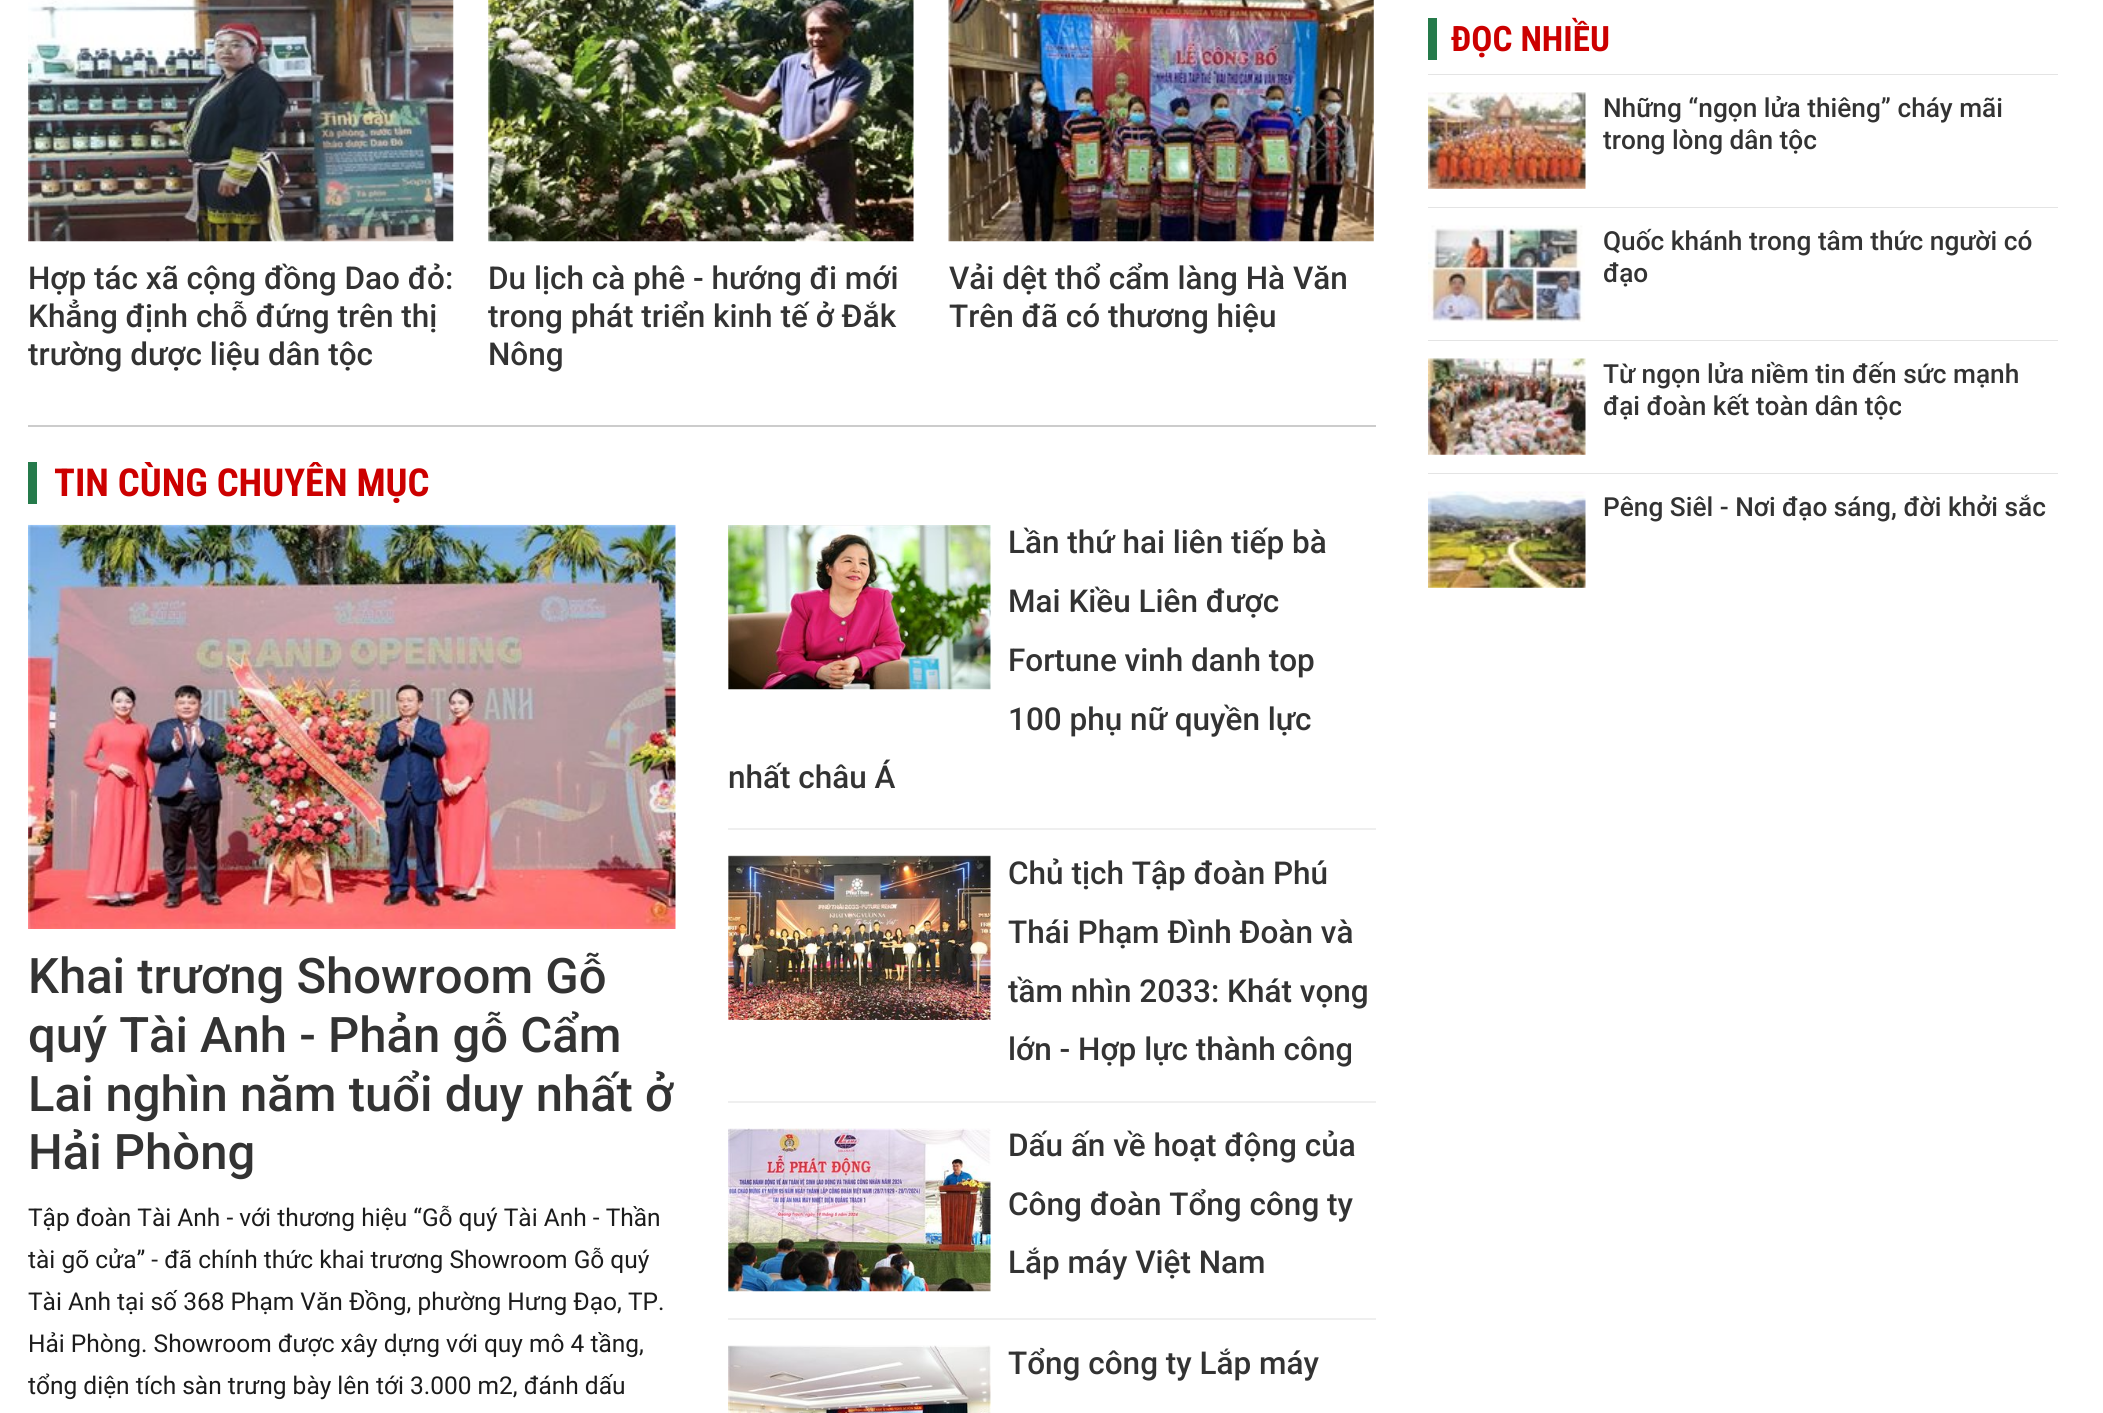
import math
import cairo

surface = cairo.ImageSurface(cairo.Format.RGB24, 2103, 1413)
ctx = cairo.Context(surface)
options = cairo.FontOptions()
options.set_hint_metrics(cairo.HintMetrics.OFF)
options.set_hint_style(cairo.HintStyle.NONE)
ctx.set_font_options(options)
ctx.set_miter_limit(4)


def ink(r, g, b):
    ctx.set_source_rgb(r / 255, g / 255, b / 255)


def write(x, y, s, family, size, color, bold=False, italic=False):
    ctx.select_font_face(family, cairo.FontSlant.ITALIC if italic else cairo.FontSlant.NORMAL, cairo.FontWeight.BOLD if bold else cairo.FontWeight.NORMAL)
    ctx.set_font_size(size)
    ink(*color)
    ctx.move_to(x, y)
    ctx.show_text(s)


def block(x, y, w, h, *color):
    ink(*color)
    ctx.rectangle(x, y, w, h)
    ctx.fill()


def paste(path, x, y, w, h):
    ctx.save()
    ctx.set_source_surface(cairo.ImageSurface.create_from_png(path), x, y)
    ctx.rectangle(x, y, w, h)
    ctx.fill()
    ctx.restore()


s1 = dict(family="Roboto Medium", size=31.5, color=(51, 51, 51))
s2 = dict(family="Roboto Condensed", size=38.5, color=(204, 0, 0), bold=True)
s3 = dict(family="Roboto Medium", size=49, color=(51, 51, 51))
s4 = dict(family="Roboto", size=24.5, color=(28, 28, 28))
s5 = dict(family="Roboto Condensed", size=35, color=(204, 0, 0), bold=True)
s6 = dict(family="Roboto Medium", size=26.25, color=(51, 51, 51))

ink(255, 255, 255)
ctx.paint()
block(28, 425, 1348, 2, 204, 204, 204)
paste("pic1.png", 28, 0, 426, 242)
write(28, 289, "Hợp tác xã cộng đồng Dao đỏ:", **s1)
write(28, 327, "Khẳng định chỗ đứng trên thị", **s1)
write(28, 365, "trường dược liệu dân tộc", **s1)
paste("pic2.png", 488, 0, 426, 242)
write(488, 289, "Du lịch cà phê - hướng đi mới", **s1)
write(488, 327, "trong phát triển kinh tế ở Đắk", **s1)
write(488, 365, "Nông", **s1)
paste("pic3.png", 948, 0, 426, 242)
write(949, 289, "Vải dệt thổ cẩm làng Hà Văn", **s1)
write(949, 327, "Trên đã có thương hiệu", **s1)
block(28, 462, 9, 42, 37, 122, 75)
ctx.save()
ctx.rectangle(28, 462, 1348, 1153)
ctx.clip()
write(54, 496, "TIN CÙNG CHUYÊN MỤC", **s2)
ctx.restore()
paste("pic4.png", 28, 524, 648, 405)
write(28, 993, "Khai trương Showroom Gỗ", **s3)
write(28, 1052, "quý Tài Anh - Phản gỗ Cẩm", **s3)
write(28, 1111, "Lai nghìn năm tuổi duy nhất ở", **s3)
write(28, 1169, "Hải Phòng", **s3)
write(28, 1226, "Tập đoàn Tài Anh - với thương hiệu “Gỗ quý Tài Anh - Thần", **s4)
write(28, 1268, "tài gõ cửa” - đã chính thức khai trương Showroom Gỗ quý", **s4)
write(28, 1310, "Tài Anh tại số 368 Phạm Văn Đồng, phường Hưng Đạo, TP.", **s4)
write(28, 1352, "Hải Phòng. Showroom được xây dựng với quy mô 4 tầng,", **s4)
write(28, 1394, "tổng diện tích sàn trưng bày lên tới 3.000 m2, đánh dấu", **s4)
block(728, 828, 648, 2, 239, 239, 239)
paste("pic5.png", 728, 525, 263, 165)
write(1008, 553, "Lần thứ hai liên tiếp bà", **s1)
write(1008, 612, "Mai Kiều Liên được", **s1)
write(1008, 671, "Fortune vinh danh top", **s1)
write(1008, 730, "100 phụ nữ quyền lực", **s1)
write(728, 788, "nhất châu Á", **s1)
block(728, 1101, 648, 2, 239, 239, 239)
paste("pic6.png", 728, 855, 263, 165)
write(1008, 884, "Chủ tịch Tập đoàn Phú", **s1)
write(1008, 943, "Thái Phạm Đình Đoàn và", **s1)
write(1008, 1002, "tầm nhìn 2033: Khát vọng", **s1)
write(1008, 1060, "lớn - Hợp lực thành công", **s1)
block(728, 1318, 648, 2, 239, 239, 239)
paste("pic7.png", 728, 1128, 263, 164)
write(1008, 1156, "Dấu ấn về hoạt động của", **s1)
write(1008, 1215, "Công đoàn Tổng công ty", **s1)
write(1008, 1273, "Lắp máy Việt Nam", **s1)
paste("pic8.png", 728, 1345, 263, 68)
write(1008, 1374, "Tổng công ty Lắp máy", **s1)
block(1428, 18, 9, 42, 37, 122, 75)
write(1451, 51, "ĐỌC NHIỀU", **s5)
block(1428, 74, 630, 1, 228, 228, 228)
paste("pic9.png", 1428, 92, 158, 97)
write(1603, 117, "Những “ngọn lửa thiêng” cháy mãi", **s6)
write(1603, 149, "trong lòng dân tộc", **s6)
block(1428, 207, 630, 1, 228, 228, 228)
paste("pic10.png", 1428, 225, 157, 97)
write(1603, 250, "Quốc khánh trong tâm thức người có", **s6)
write(1603, 282, "đạo", **s6)
block(1428, 340, 630, 1, 228, 228, 228)
paste("pic11.png", 1428, 358, 158, 97)
write(1603, 383, "Từ ngọn lửa niềm tin đến sức mạnh", **s6)
write(1603, 415, "đại đoàn kết toàn dân tộc", **s6)
block(1428, 473, 630, 1, 228, 228, 228)
paste("pic12.png", 1428, 491, 158, 97)
write(1603, 516, "Pêng Siêl - Nơi đạo sáng, đời khởi sắc", **s6)
surface.write_to_png("screenshot.png")
